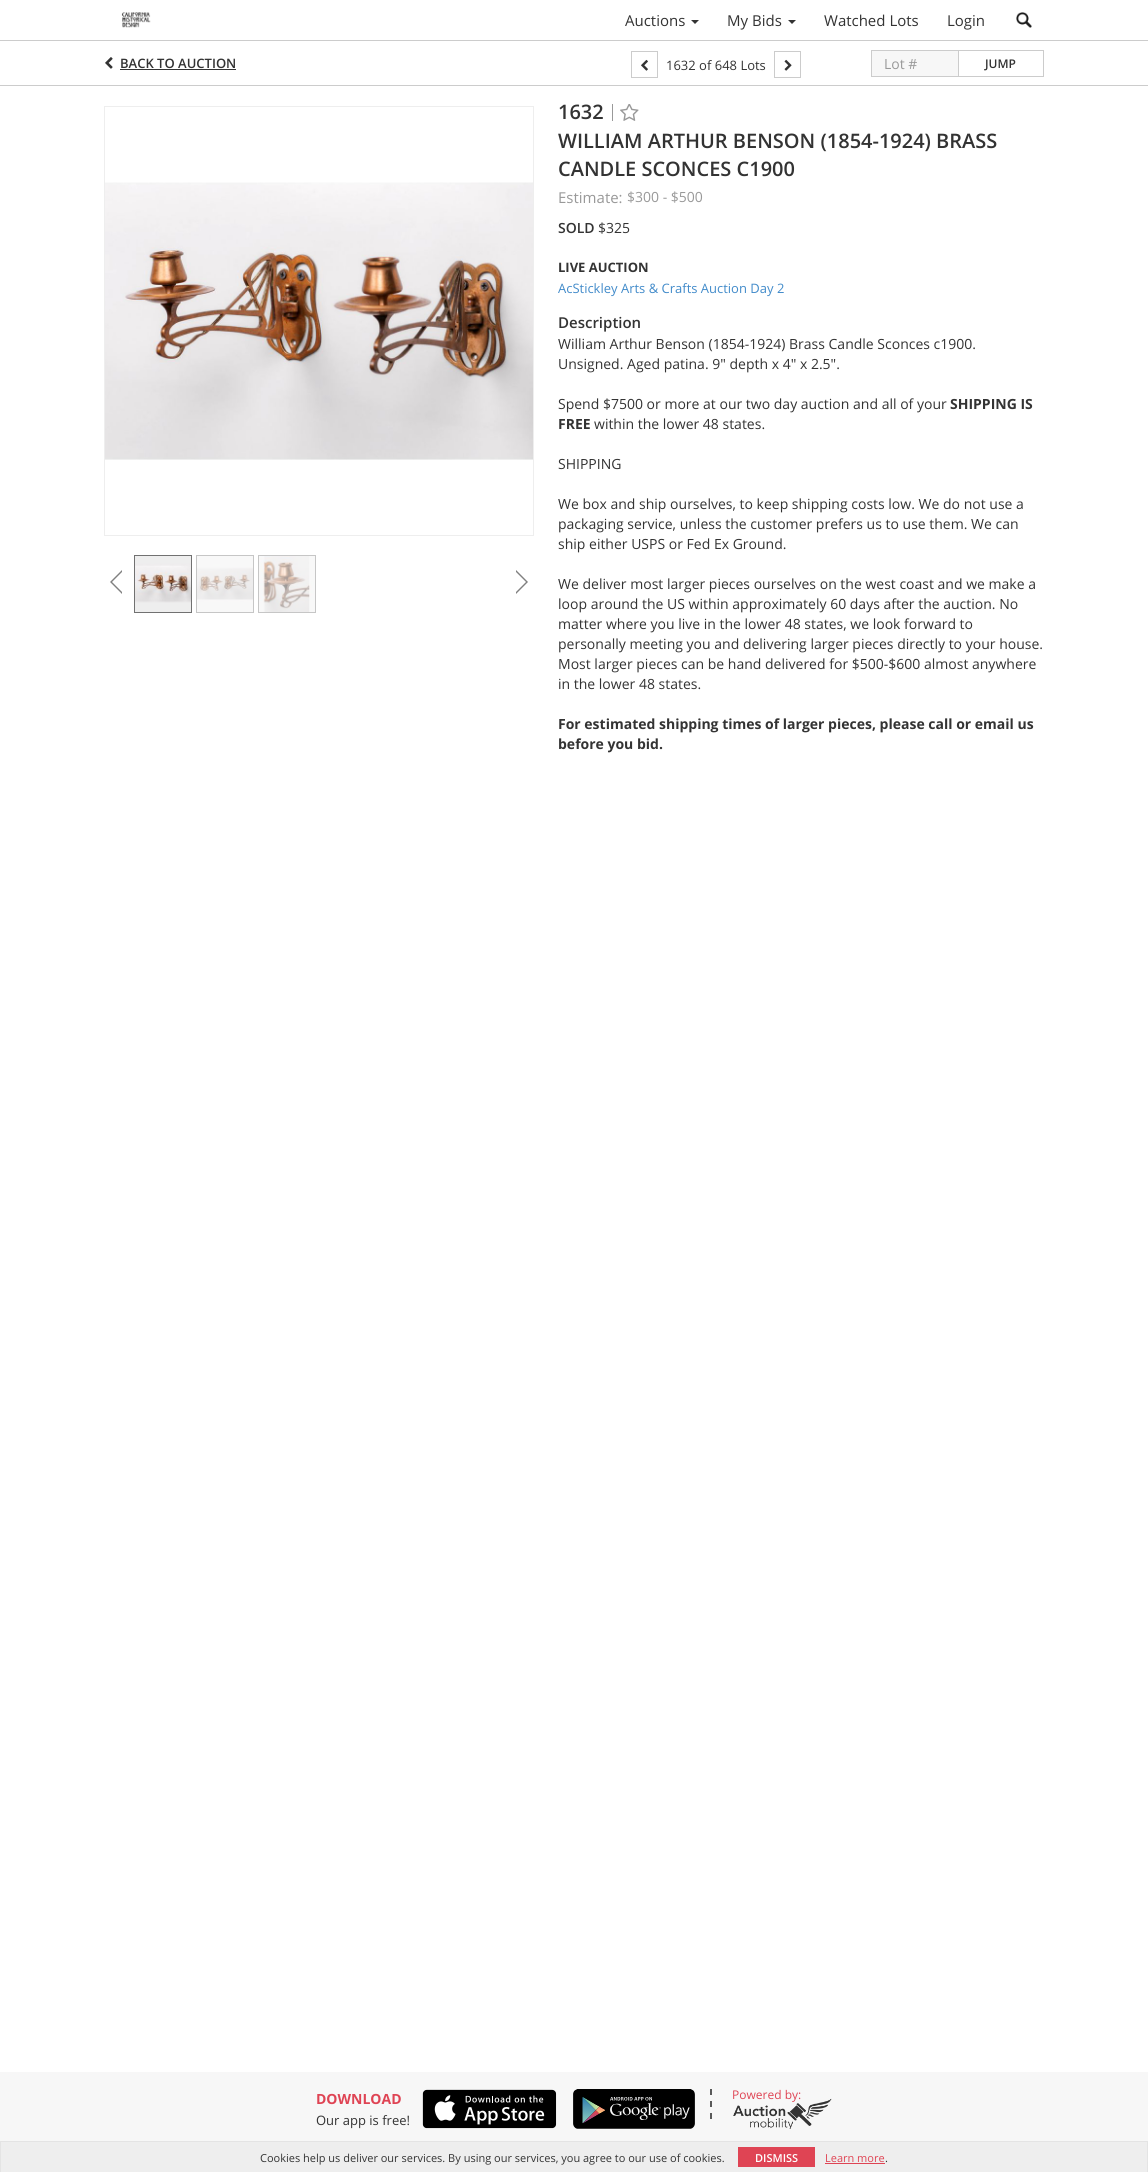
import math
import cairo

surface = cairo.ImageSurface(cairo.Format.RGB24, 1148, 2172)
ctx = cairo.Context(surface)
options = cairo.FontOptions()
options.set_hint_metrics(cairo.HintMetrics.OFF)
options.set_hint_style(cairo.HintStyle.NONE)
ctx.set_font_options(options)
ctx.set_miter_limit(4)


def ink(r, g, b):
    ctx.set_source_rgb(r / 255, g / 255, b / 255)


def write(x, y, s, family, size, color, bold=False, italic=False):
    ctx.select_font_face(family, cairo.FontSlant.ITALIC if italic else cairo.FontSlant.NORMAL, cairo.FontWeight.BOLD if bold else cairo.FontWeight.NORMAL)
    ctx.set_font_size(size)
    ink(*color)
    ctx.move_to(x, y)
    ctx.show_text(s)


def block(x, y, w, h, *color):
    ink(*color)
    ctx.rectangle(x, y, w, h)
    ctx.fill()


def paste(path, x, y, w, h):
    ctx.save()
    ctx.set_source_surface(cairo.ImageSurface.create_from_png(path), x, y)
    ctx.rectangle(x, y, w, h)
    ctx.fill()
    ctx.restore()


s1 = dict(family="Open Sans", size=15, color=(51, 51, 51))
s2 = dict(family="Open Sans SemiBold", size=13, color=(51, 51, 51))
s3 = dict(family="Open Sans", size=13, color=(51, 51, 51))
s4 = dict(family="Open Sans", size=14, color=(153, 153, 153))
s5 = dict(family="Open Sans SemiBold", size=12, color=(51, 51, 51))
s6 = dict(family="Open Sans SemiBold", size=20, color=(51, 51, 51))
s7 = dict(family="Open Sans", size=15, color=(153, 153, 153))
s8 = dict(family="Open Sans SemiBold", size=14, color=(51, 51, 51))
s9 = dict(family="Open Sans", size=14, color=(51, 51, 51))
s10 = dict(family="Open Sans", size=13, color=(51, 51, 51), bold=True)
s11 = dict(family="Open Sans", size=13, color=(66, 139, 202))
s12 = dict(family="Open Sans SemiBold", size=15, color=(51, 51, 51))
s13 = dict(family="Open Sans", size=14, color=(51, 51, 51), bold=True)
s14 = dict(family="Open Sans", size=14, color=(223, 68, 84), bold=True)
s15 = dict(family="Open Sans", size=12, color=(223, 68, 84))
s16 = dict(family="Open Sans", size=11, color=(51, 51, 51))
s17 = dict(family="Open Sans SemiBold", size=11, color=(255, 255, 255))
s18 = dict(family="Open Sans", size=11, color=(223, 68, 84))

ink(255, 255, 255)
ctx.paint()
paste("pic1.png", 121, 12, 30, 16)
write(625, 26, "Auctions", **s1)
ctx.new_path()
ctx.move_to(691, 20)
ctx.line_to(699, 20)
ctx.line_to(695, 24)
ctx.close_path()
ctx.fill()
write(727, 26, "My Bids", **s1)
ctx.new_path()
ctx.move_to(788, 20)
ctx.line_to(796, 20)
ctx.line_to(792, 24)
ctx.close_path()
ctx.fill()
write(824, 26, "Watched Lots", **s1)
write(947, 26, "Login", **s1)
paste("pic2.png", 1016, 12, 16, 16)
block(0, 40, 1148, 1, 204, 204, 204)
paste("pic3.png", 105, 57, 8, 12)
write(120, 68, "BACK TO AUCTION", **s2)
block(120, 69, 116, 1, 51, 51, 51)
ctx.rectangle(631.5, 51.5, 26, 26)
ink(204, 204, 204)
ctx.set_line_width(1)
ctx.stroke()
paste("pic4.png", 641, 59, 7, 12)
write(666, 70, "1632 of 648 Lots", **s3)
ctx.rectangle(774.5, 51.5, 26, 26)
ink(204, 204, 204)
ctx.stroke()
paste("pic5.png", 784, 59, 8, 12)
block(872, 51, 86, 25, 247, 247, 247)
block(871, 50, 87, 1, 204, 204, 204)
block(871, 76, 87, 1, 204, 204, 204)
block(871, 50, 1, 27, 204, 204, 204)
write(884, 69, "Lot #", **s4)
ctx.rectangle(958.5, 50.5, 85, 26)
ink(204, 204, 204)
ctx.stroke()
write(985, 68, "JUMP", **s5)
block(0, 85, 1148, 1, 204, 204, 204)
ctx.rectangle(104.5, 106.5, 429, 429)
ink(238, 238, 238)
ctx.stroke()
paste("pic6.png", 105, 182, 428, 278)
ctx.rectangle(134.5, 555.5, 57, 57)
ink(113, 113, 113)
ctx.stroke()
ctx.rectangle(196.5, 555.5, 57, 57)
ink(198, 198, 198)
ctx.stroke()
ctx.rectangle(258.5, 555.5, 57, 57)
ctx.stroke()
ink(128, 128, 128)
ctx.new_path()
ctx.move_to(122, 570)
ctx.line_to(122, 594)
ctx.line_to(110, 582)
ctx.close_path()
ctx.fill()
ink(255, 255, 255)
ctx.new_path()
ctx.move_to(124, 570)
ctx.line_to(124, 594)
ctx.line_to(112, 582)
ctx.close_path()
ctx.fill()
paste("pic7.png", 135, 556, 56, 56)
paste("pic8.png", 197, 556, 56, 56)
paste("pic9.png", 259, 556, 56, 56)
ink(128, 128, 128)
ctx.new_path()
ctx.move_to(516, 594)
ctx.line_to(516, 570)
ctx.line_to(528, 582)
ctx.close_path()
ctx.fill()
ink(255, 255, 255)
ctx.new_path()
ctx.move_to(514, 594)
ctx.line_to(514, 570)
ctx.line_to(526, 582)
ctx.close_path()
ctx.fill()
write(558, 119, "1632", **s6)
block(612, 104, 1, 17, 153, 153, 153)
paste("pic10.png", 620, 104, 19, 17)
write(558, 148, "WILLIAM ARTHUR BENSON (1854-1924) BRASS", **s6)
write(558, 176, "CANDLE SCONCES C1900", **s6)
write(558, 203, "Estimate:", **s7)
write(627, 202, "$300 - $500", **s4)
write(558, 233, "SOLD", **s8)
write(598, 233, "$325", **s9)
write(558, 272, "LIVE AUCTION", **s10)
write(558, 293, "AcStickley Arts & Crafts Auction Day 2", **s11)
write(558, 328, "Description", **s12)
write(558, 349, "William Arthur Benson (1854-1924) Brass Candle Sconces c1900.", **s9)
write(558, 369, "Unsigned. Aged patina. 9\" depth x 4\" x 2.5\".", **s9)
write(558, 409, "Spend $7500 or more at our two day auction and all of your", **s9)
write(950, 409, "SHIPPING IS", **s13)
write(558, 429, "FREE", **s13)
write(594, 429, "within the lower 48 states.", **s9)
write(558, 469, "SHIPPING", **s9)
write(558, 509, "We box and ship ourselves, to keep shipping costs low. We do not use a", **s9)
write(558, 529, "packaging service, unless the customer prefers us to use them. We can", **s9)
write(558, 549, "ship either USPS or Fed Ex Ground.", **s9)
write(558, 589, "We deliver most larger pieces ourselves on the west coast and we make a", **s9)
write(558, 609, "loop around the US within approximately 60 days after the auction. No", **s9)
write(558, 629, "matter where you live in the lower 48 states, we look forward to", **s9)
write(558, 649, "personally meeting you and delivering larger pieces directly to your house.", **s9)
write(558, 669, "Most larger pieces can be hand delivered for $500-$600 almost anywhere", **s9)
write(558, 689, "in the lower 48 states.", **s9)
write(558, 729, "For estimated shipping times of larger pieces, please call or email us", **s13)
write(558, 749, "before you bid.", **s13)
block(0, 2072, 1148, 69, 247, 247, 247)
write(316, 2104, "DOWNLOAD", **s14)
write(316, 2125, "Our app is free!", **s3)
paste("pic11.png", 422, 2089, 135, 40)
paste("pic12.png", 573, 2089, 122, 40)
ctx.new_path()
ctx.move_to(711, 2089)
ctx.line_to(711, 2095)
ctx.move_to(711, 2101)
ctx.line_to(711, 2107)
ctx.move_to(711, 2113)
ctx.line_to(711, 2119)
ink(89, 89, 89)
ctx.set_line_width(2)
ctx.stroke()
write(732, 2099, "Powered by:", **s15)
paste("pic13.png", 733, 2098, 99, 31)
block(1, 2142, 1146, 30, 238, 238, 238)
block(0, 2141, 1148, 1, 228, 228, 228)
block(1147, 2141, 1, 31, 228, 228, 228)
block(0, 2141, 1, 31, 228, 228, 228)
write(260, 2162, "Cookies help us deliver our services. By using our services, you agree to our use of cookies.", **s16)
block(738, 2147, 77, 20, 223, 68, 84)
write(755, 2162, "DISMISS", **s17)
write(825, 2162, "Learn more", **s18)
block(825, 2163, 60, 1, 223, 68, 84)
write(885, 2162, ".", **s16)
surface.write_to_png("screenshot.png")
